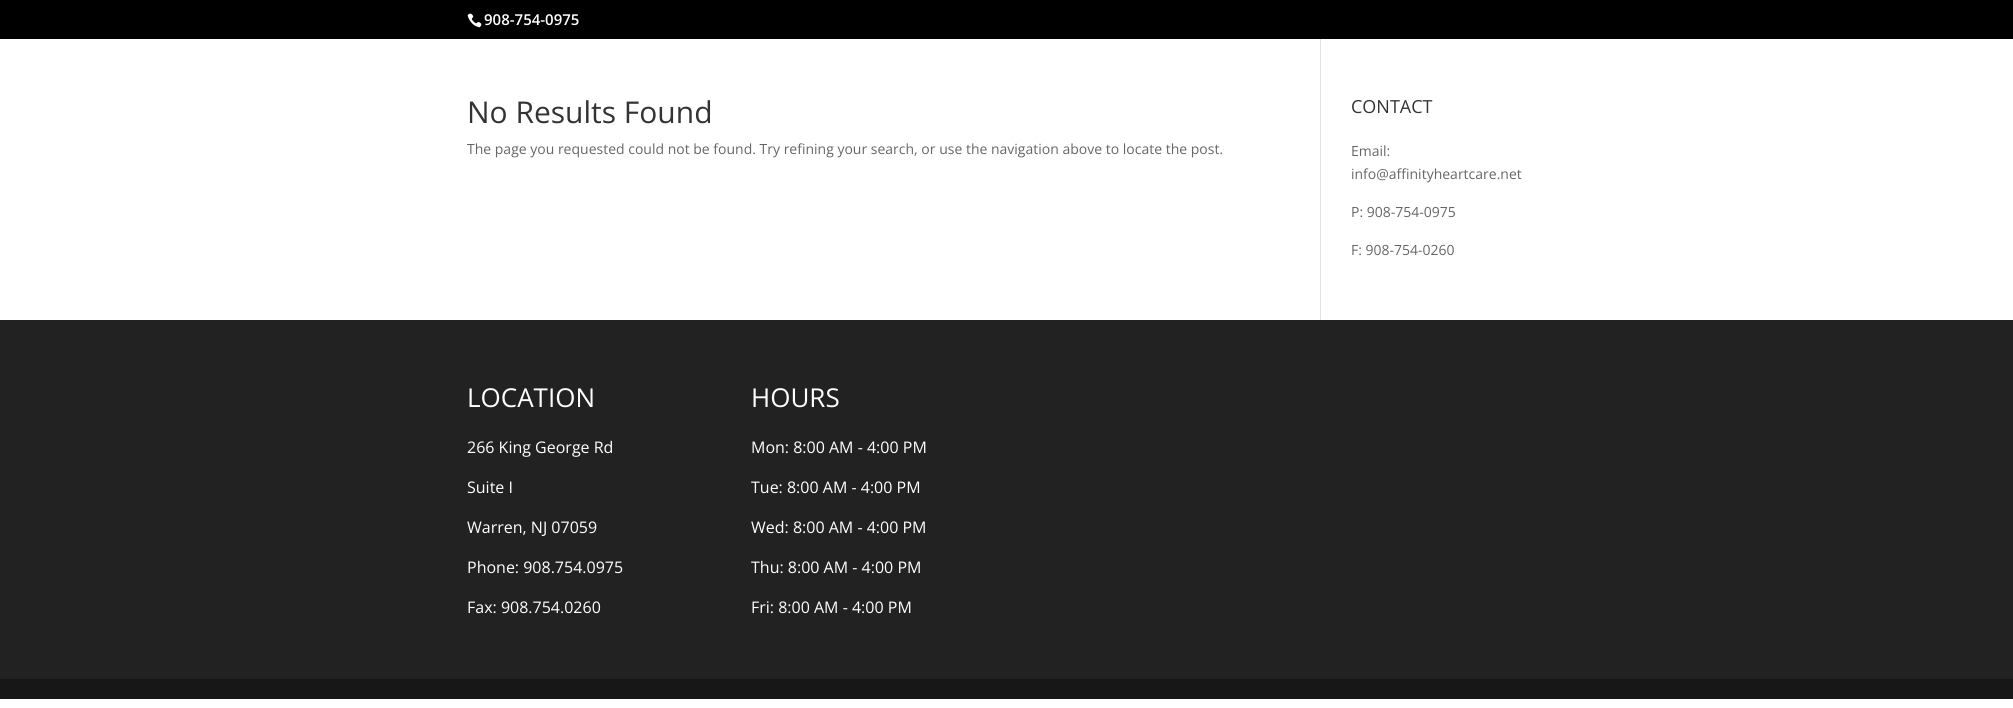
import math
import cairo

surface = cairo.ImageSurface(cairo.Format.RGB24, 2013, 708)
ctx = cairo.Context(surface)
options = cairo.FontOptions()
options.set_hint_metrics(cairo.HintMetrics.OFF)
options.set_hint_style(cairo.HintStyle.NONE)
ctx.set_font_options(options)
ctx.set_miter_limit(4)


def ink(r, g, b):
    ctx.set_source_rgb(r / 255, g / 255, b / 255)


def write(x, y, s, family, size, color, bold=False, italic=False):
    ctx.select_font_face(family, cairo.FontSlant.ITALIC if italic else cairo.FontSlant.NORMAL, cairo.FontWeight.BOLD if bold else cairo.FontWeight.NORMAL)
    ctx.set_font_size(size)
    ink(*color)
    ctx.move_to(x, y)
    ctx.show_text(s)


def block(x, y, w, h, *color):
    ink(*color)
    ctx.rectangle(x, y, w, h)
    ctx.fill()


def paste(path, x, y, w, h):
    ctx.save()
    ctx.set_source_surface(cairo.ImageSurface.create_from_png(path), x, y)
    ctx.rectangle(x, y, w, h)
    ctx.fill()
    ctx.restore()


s1 = dict(family="Open Sans SemiBold", size=15, color=(255, 255, 255))
s2 = dict(family="Open Sans", size=30, color=(51, 51, 51))
s3 = dict(family="Open Sans", size=14, color=(102, 102, 102))
s4 = dict(family="Open Sans", size=18, color=(51, 51, 51))
s5 = dict(family="Open Sans", size=26, color=(255, 255, 255))
s6 = dict(family="Open Sans", size=16, color=(255, 255, 255))

ink(255, 255, 255)
ctx.paint()
block(0, 0, 2013, 39, 0, 0, 0)
paste("pic1.png", 467, 13, 15, 15)
write(484, 25, "908-754-0975", **s1)
block(1320, 39, 1, 281, 226, 226, 226)
write(467, 123, "No Results Found", **s2)
write(467, 154, "The page you requested could not be found. Try refining your search, or use the navigation above to locate the post.", **s3)
write(1351, 113, "CONTACT", **s4)
write(1351, 156, "Email:", **s3)
write(1351, 179, "info@affinityheartcare.net", **s3)
write(1351, 217, "P: 908-754-0975", **s3)
write(1351, 255, "F: 908-754-0260", **s3)
block(0, 320, 2013, 359, 34, 34, 34)
write(467, 407, "LOCATION", **s5)
write(467, 453, "266 King George Rd", **s6)
write(467, 493, "Suite I", **s6)
write(467, 533, "Warren, NJ 07059", **s6)
write(467, 573, "Phone: 908.754.0975", **s6)
write(467, 613, "Fax: 908.754.0260", **s6)
write(751, 407, "HOURS", **s5)
write(751, 453, "Mon: 8:00 AM - 4:00 PM", **s6)
write(751, 493, "Tue: 8:00 AM - 4:00 PM", **s6)
write(751, 533, "Wed: 8:00 AM - 4:00 PM", **s6)
write(751, 573, "Thu: 8:00 AM - 4:00 PM", **s6)
write(751, 613, "Fri: 8:00 AM - 4:00 PM", **s6)
block(0, 679, 2013, 20, 23, 23, 23)
surface.write_to_png("screenshot.png")
